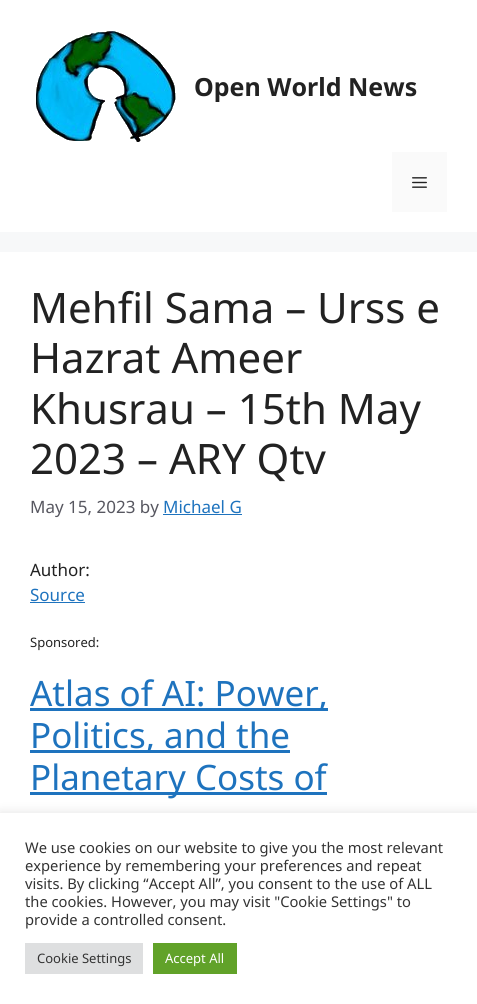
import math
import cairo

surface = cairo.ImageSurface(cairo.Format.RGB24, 477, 1004)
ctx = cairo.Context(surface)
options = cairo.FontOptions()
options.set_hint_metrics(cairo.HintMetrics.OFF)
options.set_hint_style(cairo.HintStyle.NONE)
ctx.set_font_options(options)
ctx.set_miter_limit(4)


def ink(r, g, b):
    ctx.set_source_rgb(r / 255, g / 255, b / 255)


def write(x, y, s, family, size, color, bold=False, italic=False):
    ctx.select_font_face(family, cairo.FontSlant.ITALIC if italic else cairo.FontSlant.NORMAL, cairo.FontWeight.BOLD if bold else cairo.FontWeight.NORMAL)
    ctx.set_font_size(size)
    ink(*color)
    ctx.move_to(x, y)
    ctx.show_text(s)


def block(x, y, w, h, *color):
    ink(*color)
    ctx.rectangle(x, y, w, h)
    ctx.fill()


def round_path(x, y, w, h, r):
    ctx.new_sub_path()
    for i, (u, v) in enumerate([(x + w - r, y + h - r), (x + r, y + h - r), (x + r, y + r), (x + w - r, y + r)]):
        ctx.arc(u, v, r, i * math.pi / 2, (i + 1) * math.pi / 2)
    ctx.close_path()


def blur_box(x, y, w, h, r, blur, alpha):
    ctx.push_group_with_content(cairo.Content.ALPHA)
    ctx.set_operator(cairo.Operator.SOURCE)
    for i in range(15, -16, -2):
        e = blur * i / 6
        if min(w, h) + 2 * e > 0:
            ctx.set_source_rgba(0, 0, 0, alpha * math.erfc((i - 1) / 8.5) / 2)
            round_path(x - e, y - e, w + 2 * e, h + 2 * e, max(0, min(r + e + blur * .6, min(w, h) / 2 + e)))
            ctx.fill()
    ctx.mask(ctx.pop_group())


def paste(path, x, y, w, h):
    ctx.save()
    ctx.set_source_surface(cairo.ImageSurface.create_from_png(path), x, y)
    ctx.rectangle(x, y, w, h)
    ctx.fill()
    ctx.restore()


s1 = dict(family="Noto Sans", size=25, color=(34, 34, 34), bold=True)
s2 = dict(family="Noto Sans", size=42, color=(34, 34, 34))
s3 = dict(family="Noto Sans", size=17, color=(87, 87, 96))
s4 = dict(family="Noto Sans", size=17, color=(30, 115, 190))
s5 = dict(family="Noto Sans", size=17, color=(34, 34, 34))
s6 = dict(family="Noto Sans", size=13, color=(34, 34, 34))
s7 = dict(family="Noto Sans", size=35, color=(30, 115, 190))
s8 = dict(family="Noto Sans", size=14.7, color=(51, 51, 51))
s9 = dict(family="Noto Sans", size=13, color=(51, 51, 51))
s10 = dict(family="Noto Sans", size=13, color=(255, 255, 255))

ink(247, 248, 249)
ctx.paint()
block(0, 0, 477, 232, 255, 255, 255)
paste("pic1.png", 36, 31, 140, 111)
write(194, 96, "Open World News", **s1)
block(392, 152, 55, 60, 250, 250, 250)
paste("pic2.png", 412, 177, 15, 11)
block(0, 252, 477, 561, 255, 255, 255)
write(30, 323, "Mehfil Sama – Urss e", **s2)
write(30, 373, "Hazrat Ameer", **s2)
write(30, 424, "Khusrau – 15th May", **s2)
write(30, 474, "2023 – ARY Qtv", **s2)
write(30, 513, "May 15, 2023 by", **s3)
write(163, 513, "Michael G", **s4)
block(163, 514, 79, 1, 30, 115, 190)
write(30, 576, "Author:", **s5)
write(30, 601, "Source", **s4)
block(30, 602, 55, 1, 30, 115, 190)
write(30, 647, "Sponsored:", **s6)
block(30, 708, 298, 3, 30, 115, 190)
write(30, 706, "Atlas of AI: Power,", **s7)
block(30, 750, 260, 3, 30, 115, 190)
write(30, 748, "Politics, and the", **s7)
block(30, 792, 297, 3, 30, 115, 190)
write(30, 790, "Planetary Costs of", **s7)
ink(172, 171, 171)
blur_box(0, 812, 477, 191, 0, 5, 0.3)
block(0, 813, 477, 191, 255, 255, 255)
write(25, 853, "We use cookies on our website to give you the most relevant", **s8)
write(25, 871, "experience by remembering your preferences and repeat", **s8)
write(25, 889, "visits. By clicking “Accept All”, you consent to the use of ALL", **s8)
write(25, 907, "the cookies. However, you may visit \"Cookie Settings\" to", **s8)
write(25, 925, "provide a controlled consent.", **s8)
block(25, 943, 118, 31, 222, 223, 224)
write(37, 963, "Cookie Settings", **s9)
block(153, 943, 84, 31, 97, 162, 41)
write(165, 963, "Accept All", **s10)
surface.write_to_png("screenshot.png")
